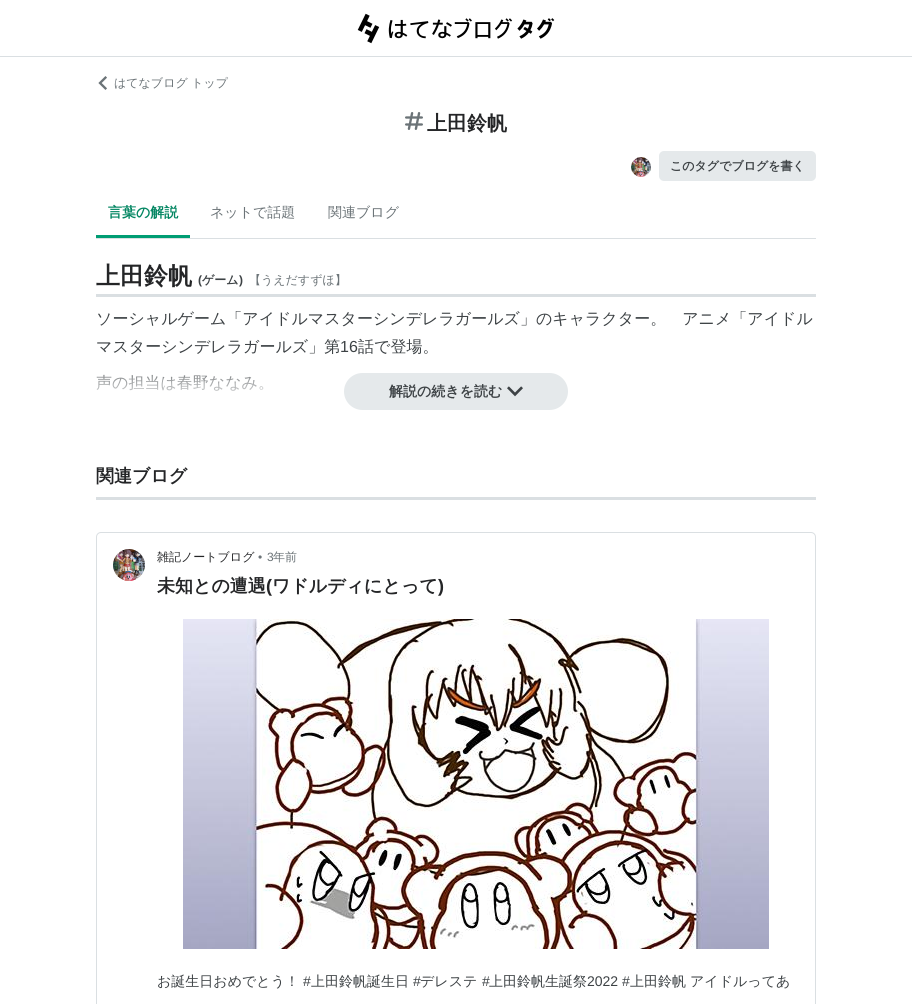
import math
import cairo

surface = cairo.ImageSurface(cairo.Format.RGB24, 912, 1004)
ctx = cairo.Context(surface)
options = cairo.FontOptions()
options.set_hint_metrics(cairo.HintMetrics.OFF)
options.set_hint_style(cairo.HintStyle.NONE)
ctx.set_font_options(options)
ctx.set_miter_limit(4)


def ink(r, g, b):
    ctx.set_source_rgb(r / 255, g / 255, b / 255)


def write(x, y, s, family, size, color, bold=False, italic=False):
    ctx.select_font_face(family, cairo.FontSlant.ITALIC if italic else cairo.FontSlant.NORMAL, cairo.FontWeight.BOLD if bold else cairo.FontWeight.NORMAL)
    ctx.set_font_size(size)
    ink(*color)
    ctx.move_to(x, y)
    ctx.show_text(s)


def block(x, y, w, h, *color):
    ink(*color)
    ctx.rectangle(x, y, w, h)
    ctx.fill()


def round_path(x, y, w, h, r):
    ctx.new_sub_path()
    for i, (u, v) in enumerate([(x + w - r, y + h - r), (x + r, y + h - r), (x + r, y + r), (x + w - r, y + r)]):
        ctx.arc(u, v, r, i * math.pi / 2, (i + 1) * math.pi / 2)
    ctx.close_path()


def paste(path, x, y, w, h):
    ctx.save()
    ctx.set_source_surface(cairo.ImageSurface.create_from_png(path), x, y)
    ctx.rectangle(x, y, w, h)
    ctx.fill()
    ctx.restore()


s1 = dict(family="WenQuanYi Zen Hei Medium", size=12, color=(107, 115, 119))
s2 = dict(family="WenQuanYi Zen Hei", size=20, color=(36, 37, 39), bold=True)
s3 = dict(family="WenQuanYi Zen Hei", size=12, color=(61, 66, 69), bold=True)
s4 = dict(family="WenQuanYi Zen Hei", size=14, color=(3, 134, 98), bold=True)
s5 = dict(family="WenQuanYi Zen Hei Medium", size=14, color=(107, 115, 119))
s6 = dict(family="WenQuanYi Zen Hei", size=24, color=(36, 37, 39), bold=True)
s7 = dict(family="Liberation Sans", size=12, color=(61, 66, 69), bold=True)
s8 = dict(family="WenQuanYi Zen Hei Medium", size=16, color=(61, 66, 69))
s9 = dict(family="Liberation Sans", size=16, color=(61, 66, 69))
s10 = dict(family="WenQuanYi Zen Hei", size=14, color=(61, 66, 69), bold=True)
s11 = dict(family="WenQuanYi Zen Hei", size=18, color=(36, 37, 39), bold=True)
s12 = dict(family="WenQuanYi Zen Hei Medium", size=12, color=(36, 37, 39))
s13 = dict(family="Liberation Sans", size=12, color=(107, 115, 119))
s14 = dict(family="Liberation Sans", size=18, color=(36, 37, 39), bold=True)
s15 = dict(family="WenQuanYi Zen Hei Medium", size=14, color=(61, 66, 69))
s16 = dict(family="Liberation Sans", size=14, color=(61, 66, 69))

ink(255, 255, 255)
ctx.paint()
block(0, 56, 912, 1, 218, 223, 226)
paste("pic1.png", 357, 13, 198, 31)
paste("pic2.png", 98, 76, 9, 14)
write(114, 87, "はてなブログ トップ", **s1)
paste("pic3.png", 405, 112, 18, 18)
write(427, 130, "上田鈴帆", **s2)
paste("pic4.png", 631, 157, 20, 20)
ink(229, 233, 235)
round_path(659, 151, 157, 30, 5)
ctx.fill()
write(670, 170, "このタグでブログを書く", **s3)
block(96, 238, 720, 1, 218, 223, 226)
block(96, 235, 94, 3, 0, 157, 115)
write(108, 217, "言葉の解説", **s4)
write(210, 217, "ネットで話題", **s5)
write(328, 217, "関連ブログ", **s5)
block(96, 294, 720, 3, 218, 223, 226)
write(96, 284, "上田鈴帆", **s6)
write(198, 284, "(", **s7)
write(202, 284, "ゲーム", **s3)
write(239, 284, ")", **s7)
write(249, 284, "【うえだすずほ】", **s1)
write(96, 324, "ソーシャルゲーム「アイドルマスターシンデレラガールズ」のキャラクター。　アニメ「アイドル", **s8)
write(96, 352, "マスターシンデレラガールズ」第", **s8)
write(340, 352, "16", **s9)
write(358, 352, "話で登場。", **s8)
write(96, 388, "声の担当は春野ななみ。", **s8)
gradient = cairo.LinearGradient(456, 405, 456, 259)
gradient.add_color_stop_rgba(0, 1, 1, 1, 1)
gradient.add_color_stop_rgba(0.33, 1, 1, 1, 0)
ctx.set_source(gradient)
ctx.rectangle(96, 374, 167, 17)
ctx.fill()
ink(229, 233, 235)
round_path(344, 373, 224, 37, 18.5)
ctx.fill()
write(389, 396, "解説の続きを読む", **s10)
paste("pic5.png", 507, 386, 16, 11)
block(96, 497, 720, 3, 218, 223, 226)
write(96, 482, "関連ブログ", **s11)
round_path(96.5, 532.5, 719, 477, 4.5)
ink(218, 223, 226)
ctx.set_line_width(1)
ctx.stroke()
paste("pic6.png", 113, 549, 32, 32)
write(157, 561, "雑記ノートブログ", **s12)
write(258, 561, "•", **s13)
write(267, 561, "3", **s13)
write(273, 561, "年前", **s1)
write(157, 592, "未知との遭遇", **s11)
write(266, 592, "(", **s14)
write(272, 592, "ワドルディにとって", **s11)
write(438, 592, ")", **s14)
paste("pic7.png", 183, 619, 586, 330)
write(157, 986, "お誕生日おめでとう！", **s15)
write(303, 986, "#", **s16)
write(311, 986, "上田鈴帆誕生日", **s15)
write(413, 986, "#", **s16)
write(420, 986, "デレステ", **s15)
write(482, 986, "#", **s16)
write(489, 986, "上田鈴帆生誕祭", **s15)
write(587, 986, "2022 #", **s16)
write(630, 986, "上田鈴帆", **s15)
write(690, 986, "アイドルってあ", **s15)
surface.write_to_png("screenshot.png")
